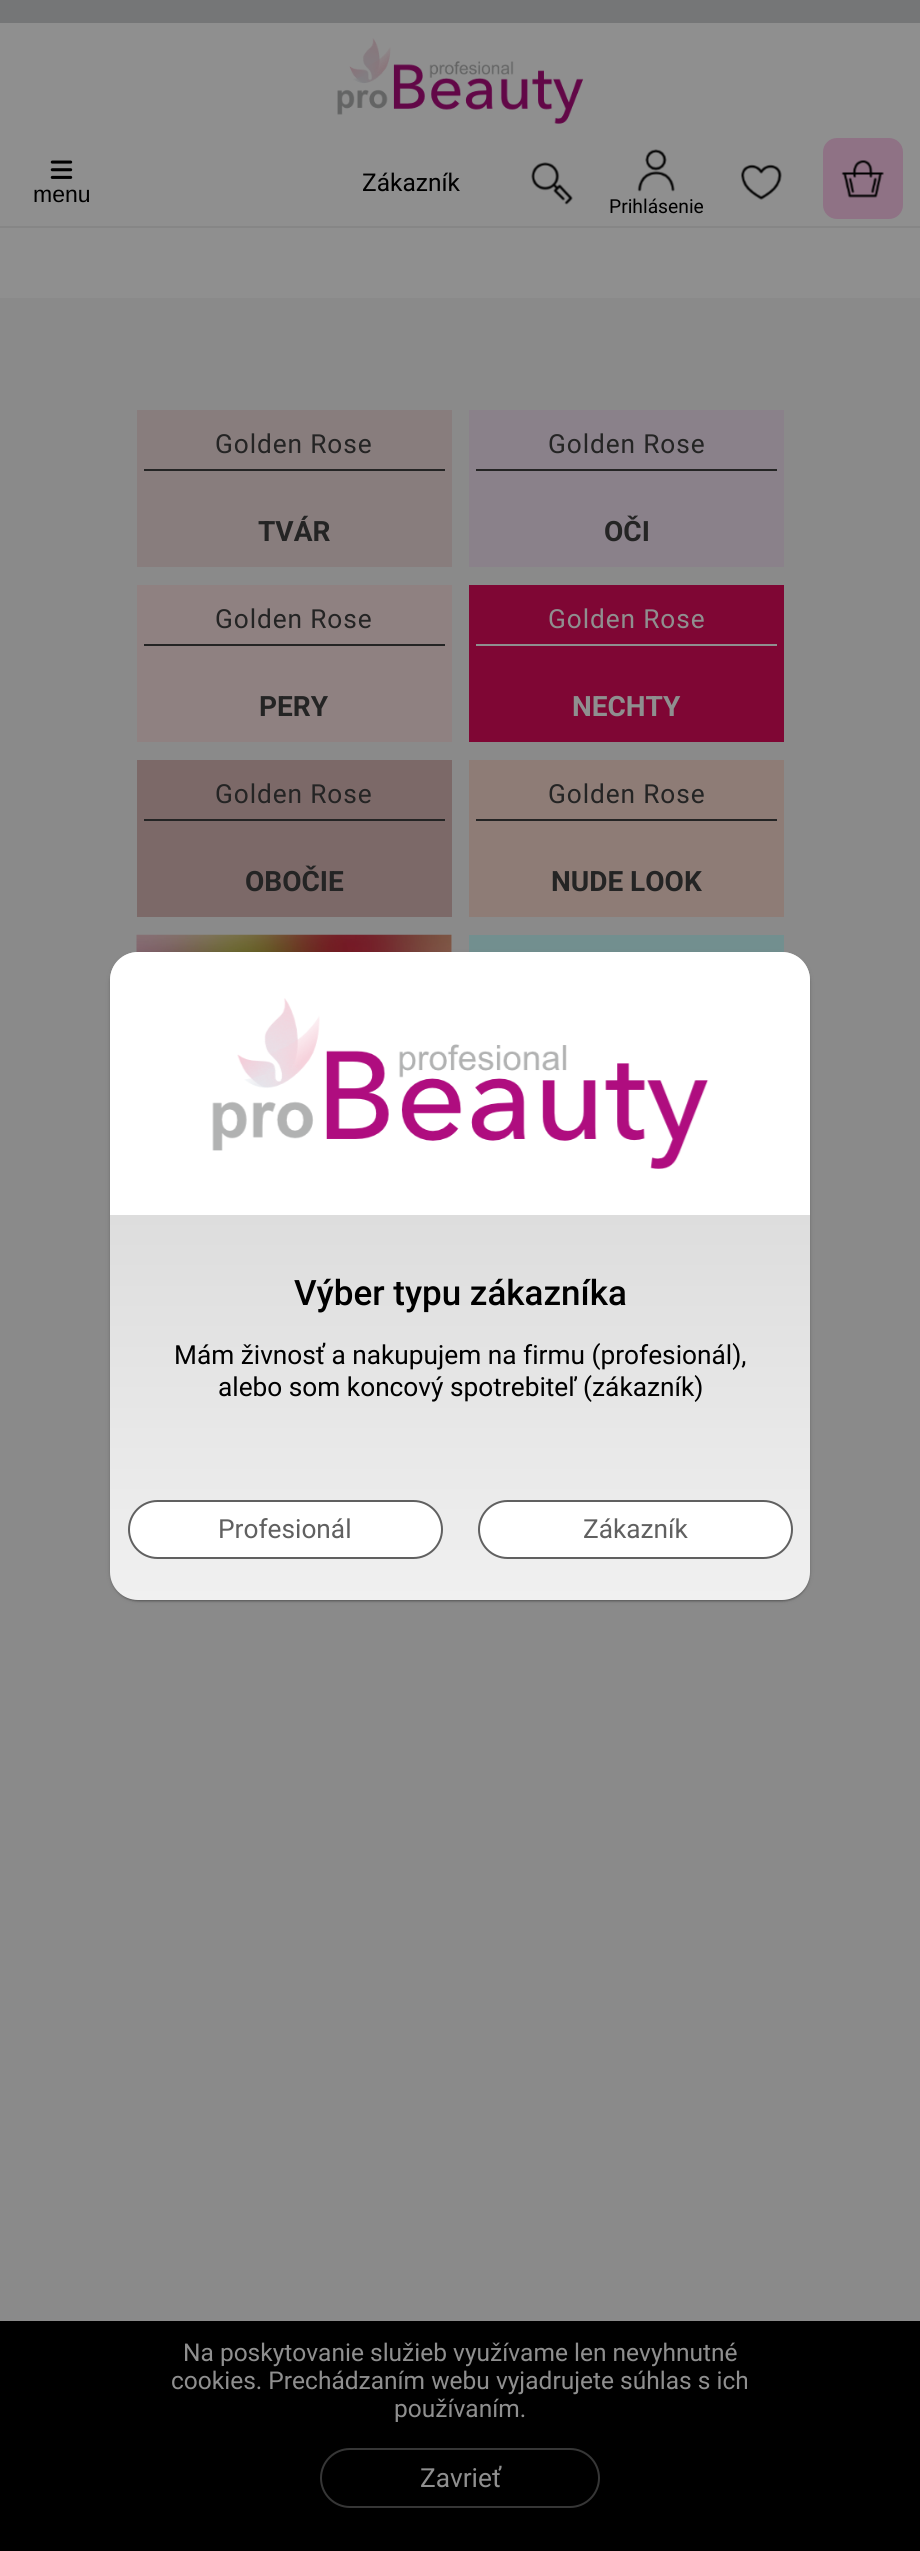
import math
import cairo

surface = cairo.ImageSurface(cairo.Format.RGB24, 920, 2551)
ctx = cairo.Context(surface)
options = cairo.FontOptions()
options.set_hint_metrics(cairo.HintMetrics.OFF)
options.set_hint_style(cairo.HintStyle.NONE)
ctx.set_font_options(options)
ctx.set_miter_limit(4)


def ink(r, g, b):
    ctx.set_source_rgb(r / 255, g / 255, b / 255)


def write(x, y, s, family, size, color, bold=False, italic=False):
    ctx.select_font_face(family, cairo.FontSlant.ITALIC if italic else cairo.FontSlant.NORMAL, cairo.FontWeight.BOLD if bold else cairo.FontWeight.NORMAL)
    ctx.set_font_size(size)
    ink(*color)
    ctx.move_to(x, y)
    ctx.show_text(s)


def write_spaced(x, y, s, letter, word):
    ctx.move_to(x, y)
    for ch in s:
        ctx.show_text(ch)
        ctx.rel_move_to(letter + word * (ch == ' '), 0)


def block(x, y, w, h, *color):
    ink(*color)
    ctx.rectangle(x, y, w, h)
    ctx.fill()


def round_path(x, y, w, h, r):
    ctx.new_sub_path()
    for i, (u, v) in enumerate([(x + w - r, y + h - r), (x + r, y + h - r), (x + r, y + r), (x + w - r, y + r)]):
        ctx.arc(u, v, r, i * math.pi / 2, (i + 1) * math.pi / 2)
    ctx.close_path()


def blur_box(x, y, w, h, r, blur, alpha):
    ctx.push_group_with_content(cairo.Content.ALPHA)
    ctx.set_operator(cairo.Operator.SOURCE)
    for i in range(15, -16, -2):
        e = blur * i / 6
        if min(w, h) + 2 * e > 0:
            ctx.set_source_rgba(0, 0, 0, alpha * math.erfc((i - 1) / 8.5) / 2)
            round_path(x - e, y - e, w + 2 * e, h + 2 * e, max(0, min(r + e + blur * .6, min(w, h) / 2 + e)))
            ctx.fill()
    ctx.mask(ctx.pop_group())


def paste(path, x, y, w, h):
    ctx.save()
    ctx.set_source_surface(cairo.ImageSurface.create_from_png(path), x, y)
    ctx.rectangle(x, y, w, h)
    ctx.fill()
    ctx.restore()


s1 = dict(family="Liberation Sans", size=23, color=(0, 0, 0))
s2 = dict(family="Roboto", size=24.5, color=(0, 0, 0))
s3 = dict(family="Roboto", size=19.25, color=(0, 0, 0))
s4 = dict(family="Roboto", size=28, color=(36, 36, 36), bold=True)
s5 = dict(family="Roboto", size=28, color=(143, 143, 143), bold=True)
s6 = dict(family="Roboto Medium", size=35, color=(0, 0, 0))
s7 = dict(family="Roboto", size=26.25, color=(0, 0, 0))
s8 = dict(family="Roboto", size=26.25, color=(96, 96, 96))
s9 = dict(family="Roboto", size=24.5, color=(143, 143, 143))
s10 = dict(family="Roboto", size=26.25, color=(143, 143, 143))

ink(138, 138, 138)
ctx.paint()
block(0, 0, 920, 23, 117, 118, 119)
block(0, 23, 920, 203, 143, 143, 143)
paste("pic1.png", 337, 38, 247, 86)
block(0, 226, 920, 2, 134, 134, 134)
paste("pic2.png", 50, 160, 23, 19)
write(33, 202, "menu", **s1)
write(362, 191, "Zákazník", **s2)
paste("pic3.png", 531, 162, 42, 43)
paste("pic4.png", 741, 164, 41, 36)
ink(143, 114, 133)
round_path(823, 138, 80, 81, 14)
ctx.fill()
paste("pic5.png", 841, 160, 43, 38)
paste("pic6.png", 637, 149, 38, 43)
write(609, 213, "Prihlásenie", **s3)
block(0, 228, 920, 70, 143, 143, 143)
block(137, 410, 315, 157, 136, 125, 125)
ctx.set_font_size(26.25)
ink(36, 36, 36)
write_spaced(215, 453, "Golden Rose", 0.9, 0)
block(144, 469, 301, 2, 36, 36, 36)
write(258, 541, "TVÁR", **s4)
block(469, 410, 315, 157, 138, 129, 138)
ctx.select_font_face("Roboto")
ctx.set_font_size(26.25)
ink(36, 36, 36)
write_spaced(548, 453, "Golden Rose", 0.9, 0)
block(476, 469, 301, 2, 36, 36, 36)
write(604, 541, "OČI", **s4)
block(137, 585, 315, 157, 143, 129, 129)
ctx.select_font_face("Roboto")
ctx.set_font_size(26.25)
ink(36, 36, 36)
write_spaced(215, 628, "Golden Rose", 0.9, 0)
block(144, 644, 301, 2, 36, 36, 36)
write(259, 716, "PERY", **s4)
block(469, 585, 315, 157, 127, 6, 52)
ctx.select_font_face("Roboto")
ctx.set_font_size(26.25)
ink(143, 143, 143)
write_spaced(548, 628, "Golden Rose", 0.9, 0)
block(476, 644, 301, 2, 143, 143, 143)
write(572, 716, "NECHTY", **s5)
block(137, 760, 315, 157, 124, 105, 104)
ctx.select_font_face("Roboto")
ctx.set_font_size(26.25)
ink(36, 36, 36)
write_spaced(215, 803, "Golden Rose", 0.9, 0)
block(144, 819, 301, 2, 36, 36, 36)
write(245, 891, "OBOČIE", **s4)
block(469, 760, 315, 157, 142, 124, 118)
ctx.select_font_face("Roboto")
ctx.set_font_size(26.25)
ink(36, 36, 36)
write_spaced(548, 803, "Golden Rose", 0.9, 0)
block(476, 819, 301, 2, 36, 36, 36)
write(551, 891, "NUDE LOOK", **s4)
block(451, 935, 1, 17, 143, 143, 143)
paste("pic7.png", 136, 934, 316, 19)
block(469, 935, 315, 18, 114, 143, 143)
ink(0, 0, 0)
blur_box(110, 954, 700, 647, 28, 2.5, 0.12)
blur_box(110, 954, 700, 647, 28, 1, 0.14)
blur_box(112, 957, 697, 644, 26, 1, 0.2)
gradient = cairo.LinearGradient(460, 1600, 460, 952)
gradient.add_color_stop_rgba(0, 0.941, 0.941, 0.941, 1)
gradient.add_color_stop_rgba(1, 0.816, 0.816, 0.816, 1)
ctx.set_source(gradient)
round_path(110, 952, 700, 648, 28)
ctx.fill()
ink(255, 255, 255)
ctx.new_path()
ctx.move_to(138, 952)
ctx.line_to(782, 952)
ctx.curve_to(797.5, 952, 810, 964.5, 810, 980)
ctx.line_to(810, 1215)
ctx.line_to(110, 1215)
ctx.line_to(110, 980)
ctx.curve_to(110, 964.5, 122.5, 952, 138, 952)
ctx.close_path()
ctx.fill()
paste("pic8.png", 212, 998, 497, 171)
write(294, 1305, "Výber typu zákazníka", **s6)
write(174, 1364, "Mám živnosť a nakupujem na firmu (profesionál),", **s7)
write(218, 1396, "alebo som koncový spotrebiteľ (zákazník)", **s7)
ink(255, 255, 255)
round_path(129, 1501, 313, 57, 28.5)
ctx.fill_preserve()
ink(96, 96, 96)
ctx.stroke()
write(218, 1538, "Profesionál", **s8)
ink(255, 255, 255)
round_path(479, 1501, 313, 57, 28.5)
ctx.fill_preserve()
ink(96, 96, 96)
ctx.stroke()
write(583, 1538, "Zákazník", **s8)
block(0, 2321, 920, 230, 0, 0, 0)
write(183, 2361, "Na poskytovanie služieb využívame len nevyhnutné", **s9)
write(171, 2389, "cookies. Prechádzaním webu vyjadrujete súhlas s ich", **s9)
write(394, 2417, "používaním.", **s9)
round_path(321, 2449, 278, 58, 29)
ink(54, 54, 54)
ctx.stroke()
write(420, 2487, "Zavrieť", **s10)
surface.write_to_png("screenshot.png")
